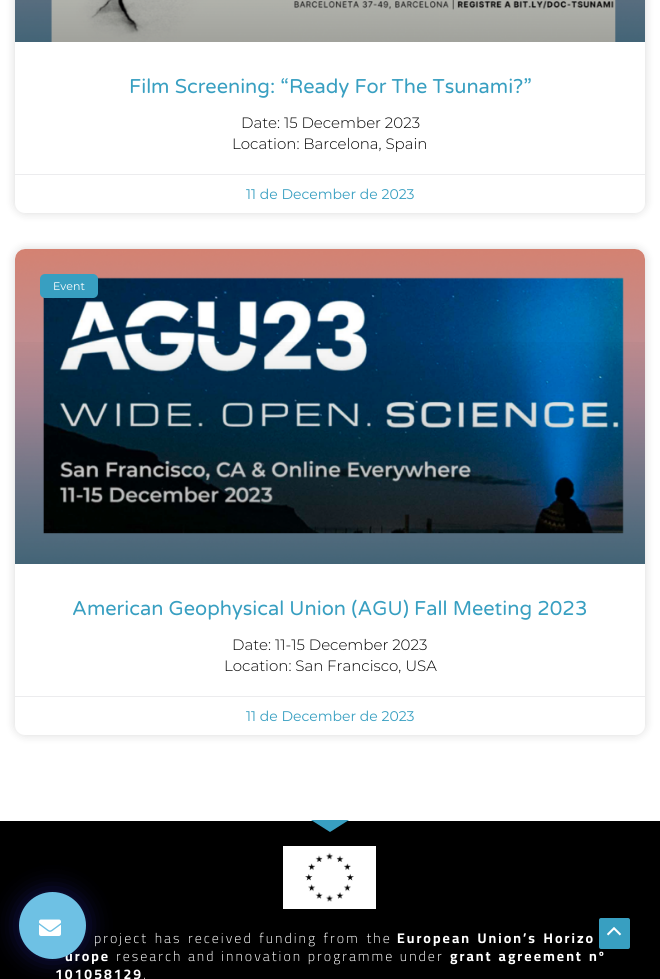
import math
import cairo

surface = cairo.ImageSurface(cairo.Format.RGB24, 660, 979)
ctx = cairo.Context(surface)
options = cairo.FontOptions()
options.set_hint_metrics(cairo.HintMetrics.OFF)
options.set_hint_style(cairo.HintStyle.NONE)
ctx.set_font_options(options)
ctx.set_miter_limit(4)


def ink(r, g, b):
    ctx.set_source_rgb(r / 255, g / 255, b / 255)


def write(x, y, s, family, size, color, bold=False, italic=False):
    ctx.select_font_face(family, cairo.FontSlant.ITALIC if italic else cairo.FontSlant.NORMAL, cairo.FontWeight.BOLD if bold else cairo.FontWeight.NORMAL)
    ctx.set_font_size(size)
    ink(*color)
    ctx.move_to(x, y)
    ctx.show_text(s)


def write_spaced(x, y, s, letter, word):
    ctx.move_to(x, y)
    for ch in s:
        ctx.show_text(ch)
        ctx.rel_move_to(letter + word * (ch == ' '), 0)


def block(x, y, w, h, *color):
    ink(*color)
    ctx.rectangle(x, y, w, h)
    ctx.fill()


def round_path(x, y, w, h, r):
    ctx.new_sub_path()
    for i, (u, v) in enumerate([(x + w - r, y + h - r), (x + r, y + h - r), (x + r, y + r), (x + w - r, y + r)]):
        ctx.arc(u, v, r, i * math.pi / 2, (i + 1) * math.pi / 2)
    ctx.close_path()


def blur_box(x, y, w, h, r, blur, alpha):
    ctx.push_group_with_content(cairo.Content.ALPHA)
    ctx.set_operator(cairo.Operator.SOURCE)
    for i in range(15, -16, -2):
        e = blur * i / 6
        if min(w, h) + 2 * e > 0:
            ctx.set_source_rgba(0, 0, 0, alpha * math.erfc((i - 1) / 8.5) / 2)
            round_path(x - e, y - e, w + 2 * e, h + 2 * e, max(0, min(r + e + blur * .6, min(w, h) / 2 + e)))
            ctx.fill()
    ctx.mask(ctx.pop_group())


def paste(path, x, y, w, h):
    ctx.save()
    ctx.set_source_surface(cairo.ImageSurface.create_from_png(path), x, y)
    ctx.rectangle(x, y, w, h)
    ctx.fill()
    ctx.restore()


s1 = dict(family="Varela Round", size=20, color=(56, 159, 193))
s2 = dict(family="Montserrat Light", size=15, color=(0, 0, 0))
s3 = dict(family="Montserrat", size=14, color=(56, 159, 193))
s4 = dict(family="Montserrat", size=11, color=(255, 255, 255))

ink(255, 255, 255)
ctx.paint()
ink(0, 0, 0)
blur_box(15, -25, 630, 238, 10, 5, 0.15)
ink(255, 255, 255)
round_path(15, -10, 630, 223, 10)
ctx.fill()
paste("pic1.png", 15, 0, 630, 42)
write(129, 93, "Film Screening: “Ready For The Tsunami?”", **s1)
write(241, 128, "Date: 15 December 2023", **s2)
write(232, 149, "Location: Barcelona, Spain", **s2)
block(15, 174, 630, 1, 236, 236, 238)
write(246, 199, "11 de December de 2023", **s3)
ink(0, 0, 0)
blur_box(15, 249, 630, 486, 10, 5, 0.15)
ink(255, 255, 255)
round_path(15, 249, 630, 486, 10)
ctx.fill()
paste("pic2.png", 15, 249, 630, 315)
gradient = cairo.LinearGradient(330, 564, 330, 249)
gradient.add_color_stop_rgba(0, 0, 0, 0, 0.35)
gradient.add_color_stop_rgba(0.75, 0, 0, 0, 0)
ctx.set_source(gradient)
ctx.rectangle(15, 342, 630, 222)
ctx.fill()
ink(56, 159, 193)
round_path(40, 274, 58, 24, 5)
ctx.fill()
write(53, 290, "Event", **s4)
write(72, 615, "American Geophysical Union (AGU) Fall Meeting 2023", **s1)
write(232, 650, "Date: 11-15 December 2023", **s2)
write(224, 671, "Location: San Francisco, USA", **s2)
block(15, 696, 630, 1, 236, 236, 238)
write(246, 721, "11 de December de 2023", **s3)
block(0, 821, 660, 158, 0, 0, 0)
ink(53, 56, 240)
blur_box(19, 892, 67, 67, 33.5, 12.5, 0.35)
ctx.select_font_face("Cairo", cairo.FontSlant.NORMAL, cairo.FontWeight.BOLD)
ink(255, 255, 255)
write_spaced(65, 961, "urope", 2, 0)
ink(110, 193, 228)
ctx.new_path()
ctx.arc(52.5, 925.5, 33.5, 0, 2 * math.pi)
ctx.fill()
paste("pic3.png", 39, 919, 22, 17)
ink(56, 159, 193)
ctx.new_path()
ctx.move_to(330, 832)
ctx.line_to(311, 820)
ctx.line_to(349, 820)
ctx.close_path()
ctx.fill()
paste("pic4.png", 283, 846, 93, 63)
ctx.select_font_face("Cairo Light")
ink(255, 255, 255)
write_spaced(94, 943, "project has received funding from the", 2, 1.5)
ctx.select_font_face("Cairo", cairo.FontSlant.NORMAL, cairo.FontWeight.BOLD)
write_spaced(397, 943, "European Union’s Horizo", 2, 1.5)
ctx.select_font_face("Cairo Light")
write_spaced(116, 961, "research and innovation programme under", 2, 0.5)
ctx.select_font_face("Cairo", cairo.FontSlant.NORMAL, cairo.FontWeight.BOLD)
write_spaced(450, 961, "grant agreement nº", 2, 1)
write_spaced(55, 979, "101058129", 2, 0)
ctx.select_font_face("Cairo Light")
write_spaced(143, 979, ".", 2, 0)
ink(56, 159, 193)
round_path(599, 918, 31, 31, 2)
ctx.fill()
paste("pic5.png", 607, 927, 15, 9)
surface.write_to_png("screenshot.png")
